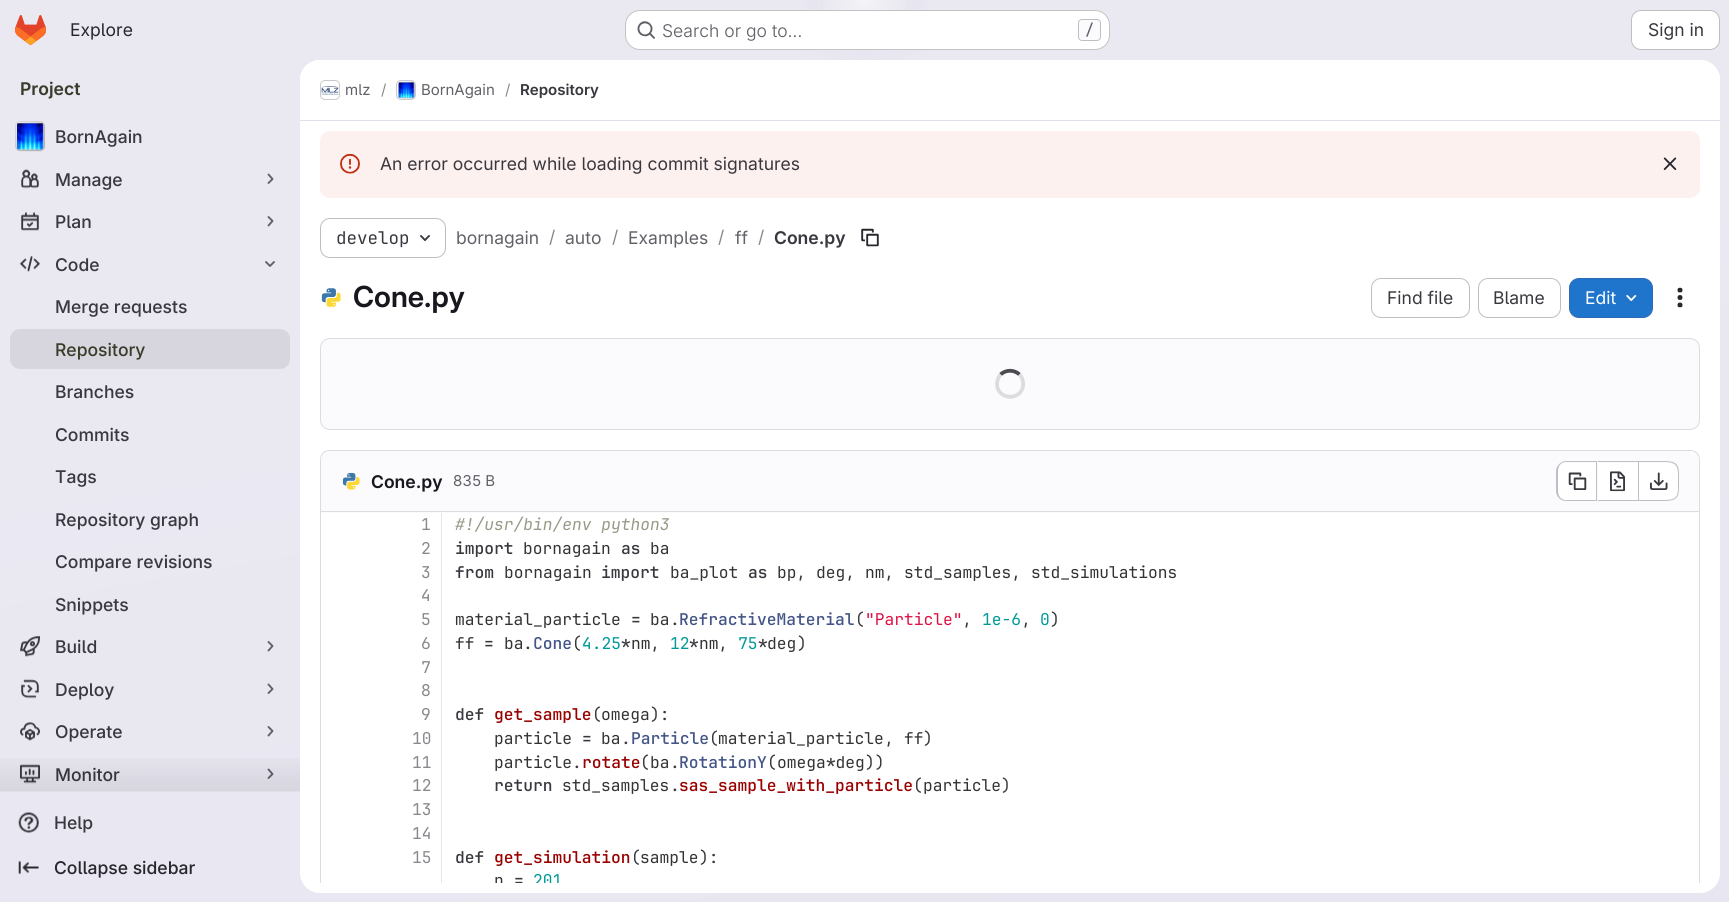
import math
import cairo

surface = cairo.ImageSurface(cairo.Format.RGB24, 1729, 902)
ctx = cairo.Context(surface)
options = cairo.FontOptions()
options.set_hint_metrics(cairo.HintMetrics.OFF)
options.set_hint_style(cairo.HintStyle.NONE)
ctx.set_font_options(options)
ctx.set_miter_limit(4)


def ink(r, g, b):
    ctx.set_source_rgb(r / 255, g / 255, b / 255)


def write(x, y, s, family, size, color, bold=False, italic=False):
    ctx.select_font_face(family, cairo.FontSlant.ITALIC if italic else cairo.FontSlant.NORMAL, cairo.FontWeight.BOLD if bold else cairo.FontWeight.NORMAL)
    ctx.set_font_size(size)
    ink(*color)
    ctx.move_to(x, y)
    ctx.show_text(s)


def block(x, y, w, h, *color):
    ink(*color)
    ctx.rectangle(x, y, w, h)
    ctx.fill()


def round_path(x, y, w, h, r):
    ctx.new_sub_path()
    for i, (u, v) in enumerate([(x + w - r, y + h - r), (x + r, y + h - r), (x + r, y + r), (x + w - r, y + r)]):
        ctx.arc(u, v, r, i * math.pi / 2, (i + 1) * math.pi / 2)
    ctx.close_path()


def paste(path, x, y, w, h):
    ctx.save()
    ctx.set_source_surface(cairo.ImageSurface.create_from_png(path), x, y)
    ctx.rectangle(x, y, w, h)
    ctx.fill()
    ctx.restore()


s1 = dict(family="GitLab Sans", size=17.5, color=(40, 39, 45))
s2 = dict(family="GitLab Sans Light", size=17.5, color=(98, 97, 104))
s3 = dict(family="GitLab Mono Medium", size=15, color=(98, 97, 104))
s4 = dict(family="GitLab Sans", size=17.5, color=(58, 56, 63))
s5 = dict(family="GitLab Sans SemiBold", size=17.5, color=(57, 60, 42))
s6 = dict(family="GitLab Sans Medium", size=17.5, color=(58, 56, 63))
s7 = dict(family="GitLab Sans Medium", size=17.5, color=(57, 60, 42))
s8 = dict(family="GitLab Sans Medium", size=17.5, color=(40, 39, 45))
s9 = dict(family="GitLab Sans", size=15, color=(98, 97, 104))
s10 = dict(family="GitLab Sans", size=15, color=(137, 136, 141))
s11 = dict(family="GitLab Sans SemiBold", size=15, color=(58, 56, 63))
s12 = dict(family="GitLab Mono", size=17.5, color=(58, 56, 63))
s13 = dict(family="GitLab Sans", size=17.5, color=(98, 97, 104))
s14 = dict(family="GitLab Sans", size=17.5, color=(137, 136, 141))
s15 = dict(family="GitLab Sans SemiBold", size=17.5, color=(58, 56, 63))
s16 = dict(family="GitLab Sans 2 SemiBold", size=29, color=(24, 23, 29))
s17 = dict(family="GitLab Sans", size=17.5, color=(255, 255, 255))
s18 = dict(family="GitLab Sans SemiBold", size=17.5, color=(24, 23, 29))
s19 = dict(family="GitLab Mono", size=16.25, color=(137, 136, 141))
s20 = dict(family="GitLab Mono", size=16.25, color=(153, 153, 136), italic=True)
s21 = dict(family="GitLab Mono SemiBold", size=16.25, color=(58, 56, 63))
s22 = dict(family="GitLab Mono", size=16.25, color=(51, 51, 51))
s23 = dict(family="GitLab Mono", size=16.25, color=(58, 56, 63))
s24 = dict(family="GitLab Mono SemiBold", size=16.25, color=(68, 85, 136))
s25 = dict(family="GitLab Mono", size=16.25, color=(221, 17, 68))
s26 = dict(family="GitLab Mono", size=16.25, color=(0, 153, 153))
s27 = dict(family="GitLab Mono SemiBold", size=16.25, color=(153, 0, 0))

ink(255, 255, 255)
ctx.paint()
gradient = cairo.LinearGradient(968, 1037, 762, -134)
gradient.add_color_stop_rgba(0, 0.91, 0.902, 0.941, 1)
gradient.add_color_stop_rgba(0.7, 0.918, 0.914, 0.949, 1)
ctx.set_source(gradient)
ctx.rectangle(0, 0, 1729, 902)
ctx.fill()
gradient = cairo.RadialGradient(0, 0, 0, 0, 0, 1)
gradient.set_matrix(cairo.Matrix(1 / 865, 0, 0, 1 / 903, -1 * 865 / 865, -1 * 0 / 903))
gradient.add_color_stop_rgba(0, 0.894, 0.886, 0.929, 1)
gradient.add_color_stop_rgba(0.1, 0.894, 0.886, 0.929, 0)
ctx.set_source(gradient)
ctx.rectangle(803, 0, 124, 60)
ctx.fill()
gradient = cairo.RadialGradient(0, 0, 0, 0, 0, 1)
gradient.set_matrix(cairo.Matrix(1 / 865, 0, 0, 1 / 903, -1 * 865 / 865, -1 * 0 / 903))
gradient.add_color_stop_rgba(0, 0.894, 0.886, 0.925, 1)
gradient.add_color_stop_rgba(0.07, 0.894, 0.886, 0.925, 0)
ctx.set_source(gradient)
ctx.rectangle(864, 15, 2, 1)
ctx.fill()
gradient = cairo.RadialGradient(865, 0, 0, 865, 0, 1250)
gradient.add_color_stop_rgba(0, 1, 1, 1, 0.6)
gradient.add_color_stop_rgba(0.04, 1, 1, 1, 0)
ctx.set_source(gradient)
ctx.rectangle(823, 0, 84, 10)
ctx.fill()
paste("pic1.png", 15, 15, 31, 30)
write(70, 36, "Explore", **s1)
ink(255, 255, 255)
round_path(625, 10, 485, 40, 15)
ctx.fill()
round_path(625.5, 10.5, 484, 39, 14.5)
ctx.set_source_rgba(0.02, 0.02, 0.024, 0.24)
ctx.set_line_width(1)
ctx.stroke()
paste("pic2.png", 637, 21, 18, 18)
write(662, 37, "Search or go to…", **s2)
ink(251, 250, 253)
round_path(1078.5, 19.5, 22, 21, 3.5)
ctx.fill_preserve()
ink(191, 191, 195)
ctx.stroke()
write(1085, 35, "/", **s3)
ink(255, 255, 255)
round_path(1631.5, 10.5, 88, 39, 9.5)
ctx.fill_preserve()
ink(191, 191, 195)
ctx.stroke()
write(1648, 36, "Sign in", **s4)
write(20, 95, "Project", **s5)
block(0, 791, 300, 1, 225, 223, 236)
paste("pic3.png", 15, 121, 30, 31)
round_path(15.5, 121.5, 29, 29, 4.5)
ctx.set_source_rgba(0.02, 0.02, 0.024, 0.08)
ctx.stroke()
write(55, 143, "BornAgain", **s6)
paste("pic4.png", 21, 169, 18, 20)
write(55, 186, "Manage", **s6)
ctx.new_path()
ctx.move_to(268.5, 174.5)
ctx.line_to(272.5, 179)
ctx.line_to(268.5, 183)
ink(98, 97, 104)
ctx.set_line_width(1.9)
ctx.set_line_cap(cairo.LineCap.ROUND)
ctx.set_line_join(cairo.LineJoin.ROUND)
ctx.stroke()
paste("pic5.png", 21, 212, 18, 19)
write(55, 228, "Plan", **s6)
ctx.new_path()
ctx.move_to(268.5, 217)
ctx.line_to(272.5, 221)
ctx.line_to(268.5, 225.5)
ink(98, 97, 104)
ctx.stroke()
paste("pic6.png", 20, 256, 20, 16)
write(55, 271, "Code", **s6)
ctx.new_path()
ctx.move_to(274, 262)
ctx.line_to(270, 266)
ctx.line_to(266, 262)
ink(98, 97, 104)
ctx.stroke()
write(55, 313, "Merge requests", **s6)
ink(215, 214, 222)
round_path(10, 329, 280, 40, 10)
ctx.fill()
write(55, 356, "Repository", **s7)
write(55, 398, "Branches", **s6)
write(55, 441, "Commits", **s6)
write(55, 483, "Tags", **s6)
write(55, 526, "Repository graph", **s6)
write(55, 568, "Compare revisions", **s6)
write(55, 611, "Snippets", **s6)
paste("pic7.png", 20, 636, 20, 21)
write(55, 653, "Build", **s6)
ctx.new_path()
ctx.move_to(268.5, 642)
ctx.line_to(272.5, 646)
ctx.line_to(268.5, 650.5)
ink(98, 97, 104)
ctx.stroke()
paste("pic8.png", 21, 679, 18, 20)
write(55, 696, "Deploy", **s6)
ctx.new_path()
ctx.move_to(268.5, 684.5)
ctx.line_to(272.5, 689)
ctx.line_to(268.5, 693)
ink(98, 97, 104)
ctx.stroke()
paste("pic9.png", 20, 722, 20, 19)
write(55, 738, "Operate", **s6)
ctx.new_path()
ctx.move_to(268.5, 727)
ctx.line_to(272.5, 731)
ctx.line_to(268.5, 735.5)
ink(98, 97, 104)
ctx.stroke()
paste("pic10.png", 20, 764, 20, 20)
write(55, 781, "Monitor", **s6)
ctx.new_path()
ctx.move_to(268.5, 769.5)
ctx.line_to(272.5, 774)
ctx.line_to(268.5, 778)
ink(98, 97, 104)
ctx.stroke()
gradient = cairo.LinearGradient(150, 746, 150, 791)
gradient.add_color_stop_rgba(0, 0.02, 0.02, 0.024, 0)
gradient.add_color_stop_rgba(1, 0.02, 0.02, 0.024, 0.08)
ctx.set_source(gradient)
ctx.rectangle(0, 758, 300, 33)
ctx.fill()
paste("pic11.png", 18, 812, 21, 21)
write(54, 829, "Help", **s6)
paste("pic12.png", 18, 860, 21, 15)
write(54, 874, "Collapse sidebar", **s8)
ink(255, 255, 255)
round_path(300, 60, 1420, 833, 20)
ctx.fill()
ctx.new_path()
ctx.move_to(320, 60)
ctx.line_to(1700, 60)
ctx.curve_to(1711, 60, 1720, 69, 1720, 80)
ctx.line_to(1720, 121)
ctx.line_to(300, 121)
ctx.line_to(300, 80)
ctx.curve_to(300, 69, 309, 60, 320, 60)
ctx.close_path()
ctx.fill()
block(300, 120, 1420, 1, 225, 223, 236)
round_path(320.5, 80.5, 19, 19, 4.5)
ink(220, 220, 222)
ctx.set_line_width(1)
ctx.set_line_cap(cairo.LineCap.BUTT)
ctx.set_line_join(cairo.LineJoin.MITER)
ctx.stroke()
paste("pic13.png", 321, 86, 18, 9)
round_path(320.5, 80.5, 19, 19, 4.5)
ctx.set_source_rgba(0.02, 0.02, 0.024, 0.08)
ctx.stroke()
write(345, 95, "mlz", **s9)
write(381, 95, "/", **s10)
round_path(396.5, 80.5, 19, 19, 4.5)
ink(220, 220, 222)
ctx.stroke()
paste("pic14.png", 397, 81, 18, 18)
round_path(396.5, 80.5, 19, 19, 4.5)
ctx.set_source_rgba(0.02, 0.02, 0.024, 0.08)
ctx.stroke()
write(421, 95, "BornAgain", **s9)
write(505, 95, "/", **s10)
write(520, 95, "Repository", **s11)
ink(252, 241, 239)
round_path(320, 131, 1380, 67, 10)
ctx.fill()
paste("pic15.png", 340, 153, 20, 21)
write(380, 170, "An error occurred while loading commit signatures", **s4)
paste("pic16.png", 1663, 157, 14, 13)
round_path(320.5, 218.5, 125, 39, 9.5)
ink(191, 191, 195)
ctx.stroke()
write(336, 244, "develop", **s12)
paste("pic17.png", 420, 235, 10, 6)
write(456, 244, "bornagain", **s13)
write(549, 243, "/", **s14)
write(565, 244, "auto", **s13)
write(612, 243, "/", **s14)
write(628, 244, "Examples", **s13)
write(718, 243, "/", **s14)
write(735, 244, "ff", **s13)
write(758, 243, "/", **s14)
write(774, 244, "Cone.py", **s15)
paste("pic18.png", 861, 228, 18, 19)
paste("pic19.png", 321, 288, 20, 19)
write(353, 307, "Cone.py", **s16)
round_path(1371.5, 278.5, 98, 39, 9.5)
ink(191, 191, 195)
ctx.stroke()
write(1387, 304, "Find file", **s4)
round_path(1478.5, 278.5, 82, 39, 9.5)
ink(191, 191, 195)
ctx.stroke()
write(1493, 304, "Blame", **s4)
ink(31, 117, 203)
round_path(1569.5, 278.5, 83, 39, 9.5)
ctx.fill_preserve()
ink(47, 104, 180)
ctx.stroke()
write(1585, 304, "Edit", **s17)
paste("pic20.png", 1626, 295, 11, 6)
paste("pic21.png", 1677, 287, 6, 21)
ink(251, 250, 253)
round_path(320.5, 338.5, 1379, 91, 9.5)
ctx.fill_preserve()
ink(220, 220, 222)
ctx.stroke()
ctx.new_path()
ctx.move_to(1000.5, 374.5)
ctx.curve_to(1006, 369.5, 1014, 369.5, 1019.5, 374.5)
ink(76, 75, 81)
ctx.set_line_width(3.8)
ctx.stroke()
ctx.new_path()
ctx.move_to(1019.5, 374.5)
ctx.curve_to(1022.5, 377.5, 1023.5, 382, 1023, 386.5)
ctx.curve_to(1020, 401.5, 997, 399.5, 997, 384)
ctx.curve_to(997, 380.5, 998.5, 377, 1000.5, 374.5)
ink(220, 220, 222)
ctx.stroke()
ctx.save()
ctx.rectangle(300, 121, 1420, 762)
ctx.clip()
ctx.new_path()
ctx.move_to(330, 450)
ctx.curve_to(324, 450, 320, 454, 320, 460)
ctx.line_to(320, 893)
ctx.line_to(321, 893)
ctx.line_to(321, 460)
ctx.curve_to(321, 455, 325, 451, 330, 451)
ctx.line_to(1690, 451)
ctx.curve_to(1695, 451, 1699, 455, 1699, 460)
ctx.line_to(1699, 893)
ctx.line_to(1700, 893)
ctx.line_to(1700, 460)
ctx.curve_to(1700, 454, 1696, 450, 1690, 450)
ctx.close_path()
ctx.fill()
ctx.restore()
ink(251, 250, 253)
ctx.new_path()
ctx.move_to(330, 451)
ctx.line_to(1690, 451)
ctx.curve_to(1695, 451, 1699, 455, 1699, 460)
ctx.line_to(1699, 513)
ctx.line_to(321, 513)
ctx.line_to(321, 460)
ctx.curve_to(321, 455, 325, 451, 330, 451)
ctx.close_path()
ctx.fill()
block(321, 511, 1378, 1, 220, 220, 222)
paste("pic22.png", 342, 473, 18, 17)
write(371, 488, "Cone.py", **s18)
write(453, 486, "835 B", **s9)
ink(255, 255, 255)
ctx.new_path()
ctx.move_to(1567, 463)
ctx.line_to(1596, 463)
ctx.line_to(1596, 500)
ctx.line_to(1567, 500)
ctx.curve_to(1562, 500, 1558, 496, 1558, 491)
ctx.line_to(1558, 472)
ctx.curve_to(1558, 467, 1562, 463, 1567, 463)
ctx.close_path()
ctx.fill()
ink(191, 191, 195)
ctx.set_fill_rule(cairo.FillRule.EVEN_ODD)
ctx.new_path()
ctx.move_to(1566, 461)
ctx.line_to(1596, 461)
ctx.line_to(1596, 501)
ctx.line_to(1566, 501)
ctx.curve_to(1561, 501, 1556, 497, 1556, 491)
ctx.line_to(1556, 471)
ctx.curve_to(1556, 466, 1561, 461, 1566, 461)
ctx.close_path()
ctx.move_to(1566, 462)
ctx.line_to(1596, 462)
ctx.line_to(1596, 500)
ctx.line_to(1566, 500)
ctx.curve_to(1561, 500, 1558, 496, 1558, 491)
ctx.line_to(1558, 471)
ctx.curve_to(1558, 466, 1561, 462, 1566, 462)
ctx.close_path()
ctx.fill()
paste("pic23.png", 1568, 472, 19, 18)
block(1598, 463, 40, 37, 255, 255, 255)
block(1598, 461, 40, 1, 191, 191, 195)
block(1598, 500, 40, 1, 191, 191, 195)
block(1596, 461, 1, 40, 191, 191, 195)
paste("pic24.png", 1610, 471, 15, 21)
ink(255, 255, 255)
ctx.new_path()
ctx.move_to(1639, 463)
ctx.line_to(1669, 463)
ctx.curve_to(1674, 463, 1678, 467, 1678, 472)
ctx.line_to(1678, 491)
ctx.curve_to(1678, 496, 1674, 500, 1669, 500)
ctx.line_to(1639, 500)
ctx.close_path()
ctx.fill()
ink(191, 191, 195)
ctx.new_path()
ctx.move_to(1639, 461)
ctx.line_to(1664, 461)
ctx.curve_to(1680, 461, 1679, 467, 1679, 481)
ctx.curve_to(1679, 495, 1680, 501, 1664, 501)
ctx.line_to(1639, 501)
ctx.close_path()
ctx.move_to(1639, 462)
ctx.line_to(1664, 462)
ctx.curve_to(1679, 462, 1678, 468, 1678, 481)
ctx.curve_to(1678, 495, 1679, 500, 1664, 500)
ctx.line_to(1639, 500)
ctx.close_path()
ctx.fill()
block(1638, 461, 1, 40, 191, 191, 195)
paste("pic25.png", 1650, 472, 18, 18)
write(421, 530, "1", **s19)
write(421, 554, "2", **s19)
write(421, 578, "3", **s19)
write(421, 601, "4", **s19)
write(421, 625, "5", **s19)
write(421, 649, "6", **s19)
write(421, 673, "7", **s19)
write(421, 696, "8", **s19)
write(421, 720, "9", **s19)
write(412, 744, "10", **s19)
write(412, 768, "11", **s19)
write(412, 791, "12", **s19)
write(412, 815, "13", **s19)
write(412, 839, "14", **s19)
write(412, 863, "15", **s19)
block(441, 513, 1, 370, 230, 230, 230)
write(455, 530, "#!/usr/bin/env python3", **s20)
write(455, 554, "import", **s21)
write(523, 554, "bornagain", **s22)
write(621, 554, "as", **s21)
write(650, 554, "ba", **s22)
write(455, 578, "from", **s21)
write(504, 578, "bornagain", **s22)
write(601, 578, "import", **s21)
write(670, 578, "ba_plot", **s22)
write(748, 578, "as", **s21)
write(777, 578, "bp", **s22)
write(796, 578, ",", **s23)
write(816, 578, "deg", **s22)
write(845, 578, ",", **s23)
write(865, 578, "nm", **s22)
write(884, 578, ",", **s23)
write(904, 578, "std_samples", **s22)
write(1011, 578, ",", **s23)
write(1031, 578, "std_simulations", **s22)
write(455, 625, "material_particle", **s22)
write(631, 625, "=", **s21)
write(650, 625, "ba", **s22)
write(679, 625, "RefractiveMaterial", **s24)
write(855, 625, "(", **s23)
write(865, 625, "\"Particle\"", **s25)
write(982, 625, "1e-6", **s26)
write(1040, 625, "0", **s26)
write(1050, 625, ")", **s23)
write(670, 625, ".", **s23)
write(962, 625, ",", **s23)
write(1021, 625, ",", **s23)
write(455, 649, "ff", **s22)
write(484, 649, "=", **s21)
write(504, 649, "ba", **s22)
write(533, 649, "Cone", **s24)
write(572, 649, "(", **s23)
write(582, 649, "4.25", **s26)
write(621, 649, "*", **s21)
write(631, 649, "nm", **s22)
write(670, 649, "12", **s26)
write(689, 649, "*", **s21)
write(699, 649, "nm", **s22)
write(738, 649, "75", **s26)
write(758, 649, "*", **s21)
write(767, 649, "deg", **s22)
write(797, 649, ")", **s23)
write(523, 649, ".", **s23)
write(650, 649, ",", **s23)
write(718, 649, ",", **s23)
write(455, 720, "def", **s21)
write(494, 720, "get_sample", **s27)
write(592, 720, "(", **s23)
write(601, 720, "omega", **s22)
write(650, 720, "):", **s23)
write(494, 744, "particle", **s22)
write(582, 744, "=", **s21)
write(601, 744, "ba", **s22)
write(631, 744, "Particle", **s24)
write(709, 744, "(", **s23)
write(718, 744, "material_particle", **s22)
write(904, 744, "ff", **s22)
write(923, 744, ")", **s23)
write(621, 744, ".", **s23)
write(884, 744, ",", **s23)
write(494, 768, "particle", **s22)
write(582, 768, "rotate", **s27)
write(640, 768, "(", **s23)
write(650, 768, "ba", **s22)
write(679, 768, "RotationY", **s24)
write(767, 768, "(", **s23)
write(777, 768, "omega deg", **s22)
write(865, 768, "))", **s23)
write(572, 768, ".", **s23)
write(670, 768, ".", **s23)
write(826, 768, "*", **s21)
write(494, 791, "return", **s21)
write(562, 791, "std_samples", **s22)
write(670, 791, ".", **s23)
write(679, 791, "sas_sample_with_particle", **s27)
write(913, 791, "(", **s23)
write(923, 791, "particle", **s22)
write(1001, 791, ")", **s23)
write(455, 863, "def", **s21)
write(494, 863, "get_simulation", **s27)
write(631, 863, "(", **s23)
write(640, 863, "sample", **s22)
write(699, 863, "):", **s23)
ctx.save()
ctx.set_fill_rule(cairo.FillRule.WINDING)
ctx.rectangle(441, 513, 1258, 370)
ctx.clip()
write(494, 886, "n", **s22)
write(514, 886, "=", **s21)
write(533, 886, "201", **s26)
ctx.restore()
surface.write_to_png("screenshot.png")
